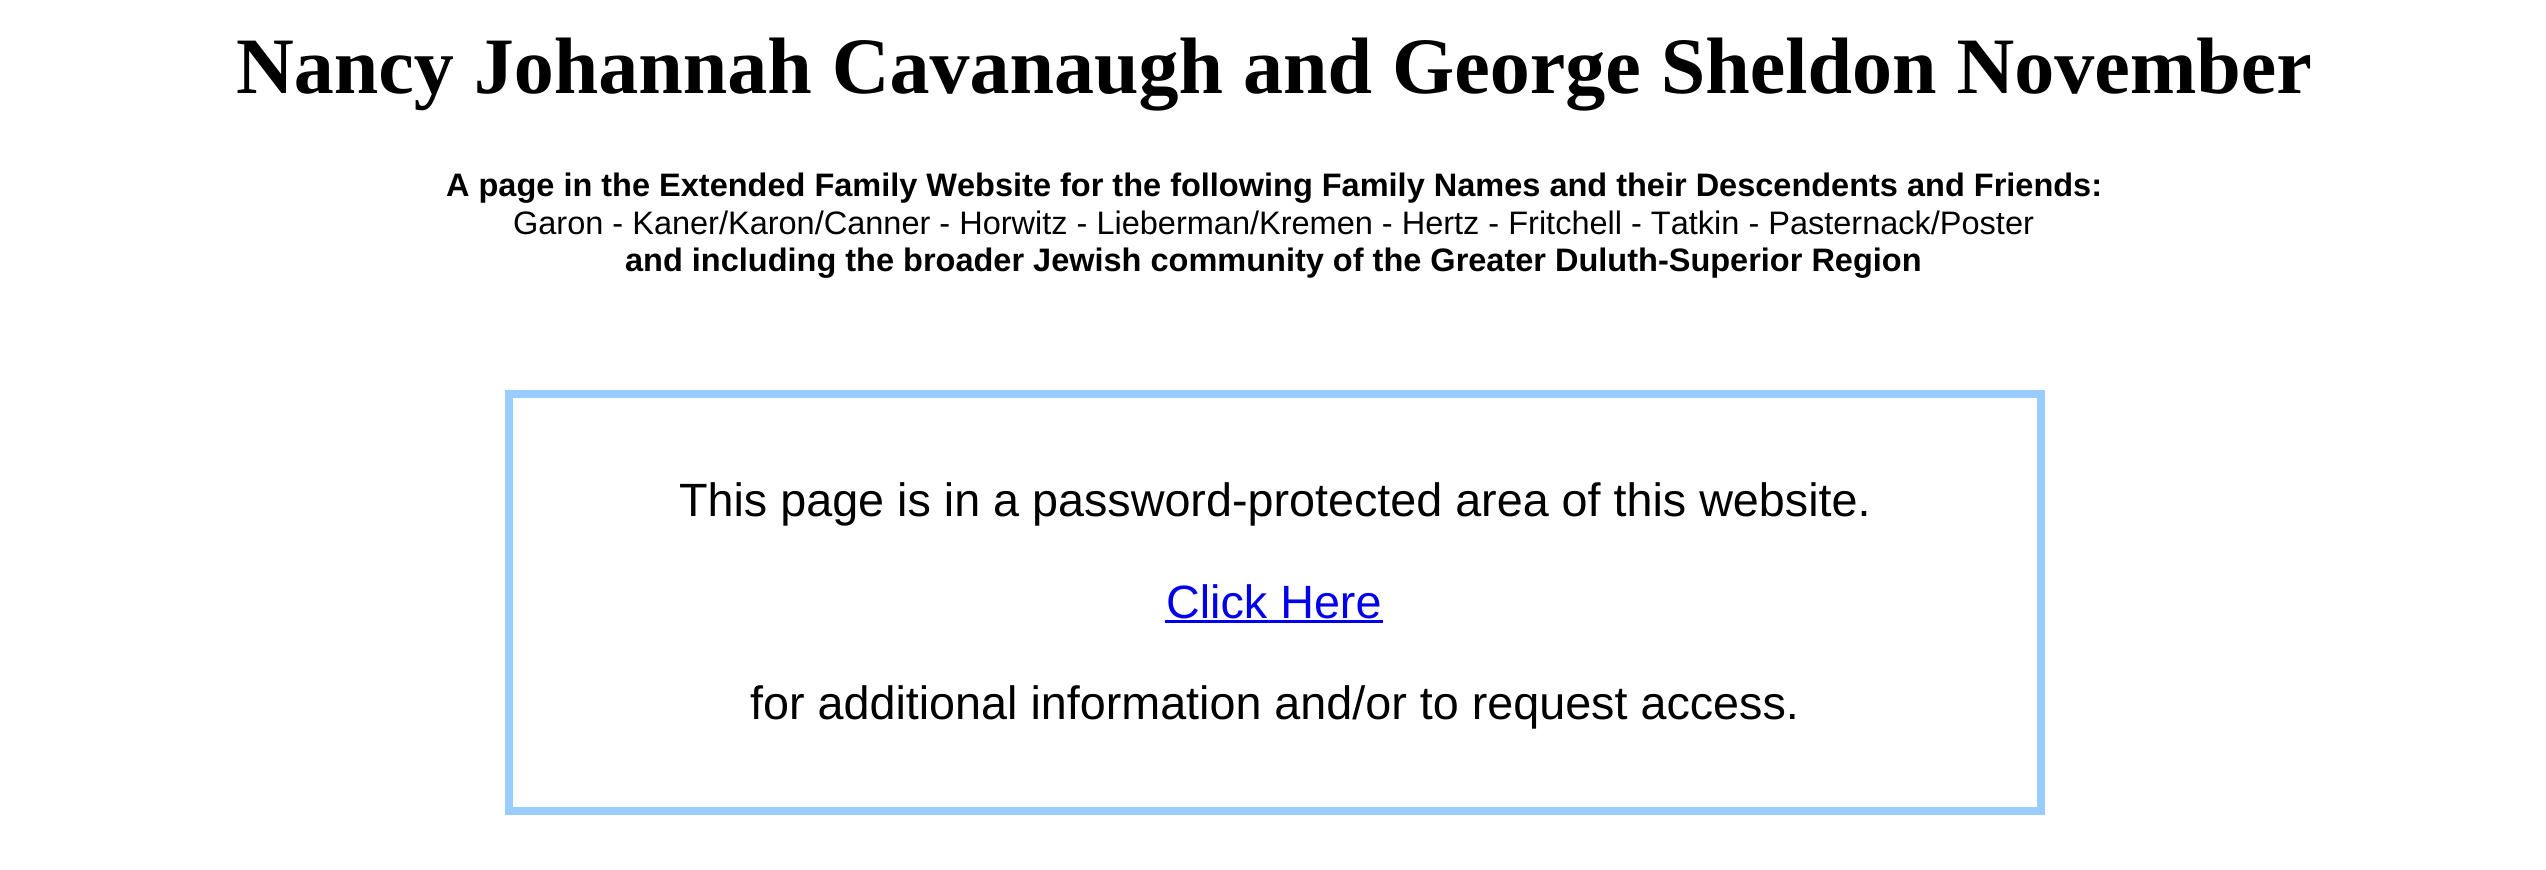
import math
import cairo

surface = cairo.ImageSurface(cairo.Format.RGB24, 2546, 870)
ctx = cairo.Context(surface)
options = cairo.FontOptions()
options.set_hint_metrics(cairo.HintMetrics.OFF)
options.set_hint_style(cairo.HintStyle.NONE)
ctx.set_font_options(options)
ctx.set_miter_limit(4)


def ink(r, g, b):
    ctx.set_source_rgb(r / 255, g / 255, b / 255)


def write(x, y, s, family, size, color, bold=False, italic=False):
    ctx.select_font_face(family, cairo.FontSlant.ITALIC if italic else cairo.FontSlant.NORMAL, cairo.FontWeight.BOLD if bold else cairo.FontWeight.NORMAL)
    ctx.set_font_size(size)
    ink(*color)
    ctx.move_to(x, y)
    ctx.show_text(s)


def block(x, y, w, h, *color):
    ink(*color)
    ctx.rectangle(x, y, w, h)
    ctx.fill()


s1 = dict(family="Liberation Serif", size=80, color=(0, 0, 0), bold=True)
s2 = dict(family="Liberation Sans", size=32.5, color=(0, 0, 0), bold=True)
s3 = dict(family="Liberation Sans", size=32.5, color=(0, 0, 0))
s4 = dict(family="Liberation Sans", size=46.7, color=(0, 0, 0))
s5 = dict(family="Liberation Sans", size=46.7, color=(0, 0, 238))

ink(255, 255, 255)
ctx.paint()
write(236, 93, "Nancy Johannah Cavanaugh and George Sheldon November", **s1)
write(446, 196, "A page in the Extended Family Website for the following Family Names and their Descendents and Friends:", **s2)
write(513, 234, "Garon - Kaner/Karon/Canner - Horwitz - Lieberman/Kremen - Hertz - Fritchell - Tatkin - Pasternack/Poster", **s3)
write(625, 271, "and including the broader Jewish community of the Greater Duluth-Superior Region", **s2)
ctx.rectangle(507.5, 392.5, 1535, 420)
ink(153, 204, 255)
ctx.set_line_width(5)
ctx.stroke()
ctx.rectangle(511.5, 396.5, 1527, 412)
ctx.set_line_width(3)
ctx.stroke()
write(679, 516, "This page is in a password-protected area of this website.", **s4)
write(1166, 618, "Click Here", **s5)
block(1165, 620, 218, 3, 0, 0, 238)
write(750, 719, "for additional information and/or to request access.", **s4)
surface.write_to_png("screenshot.png")
